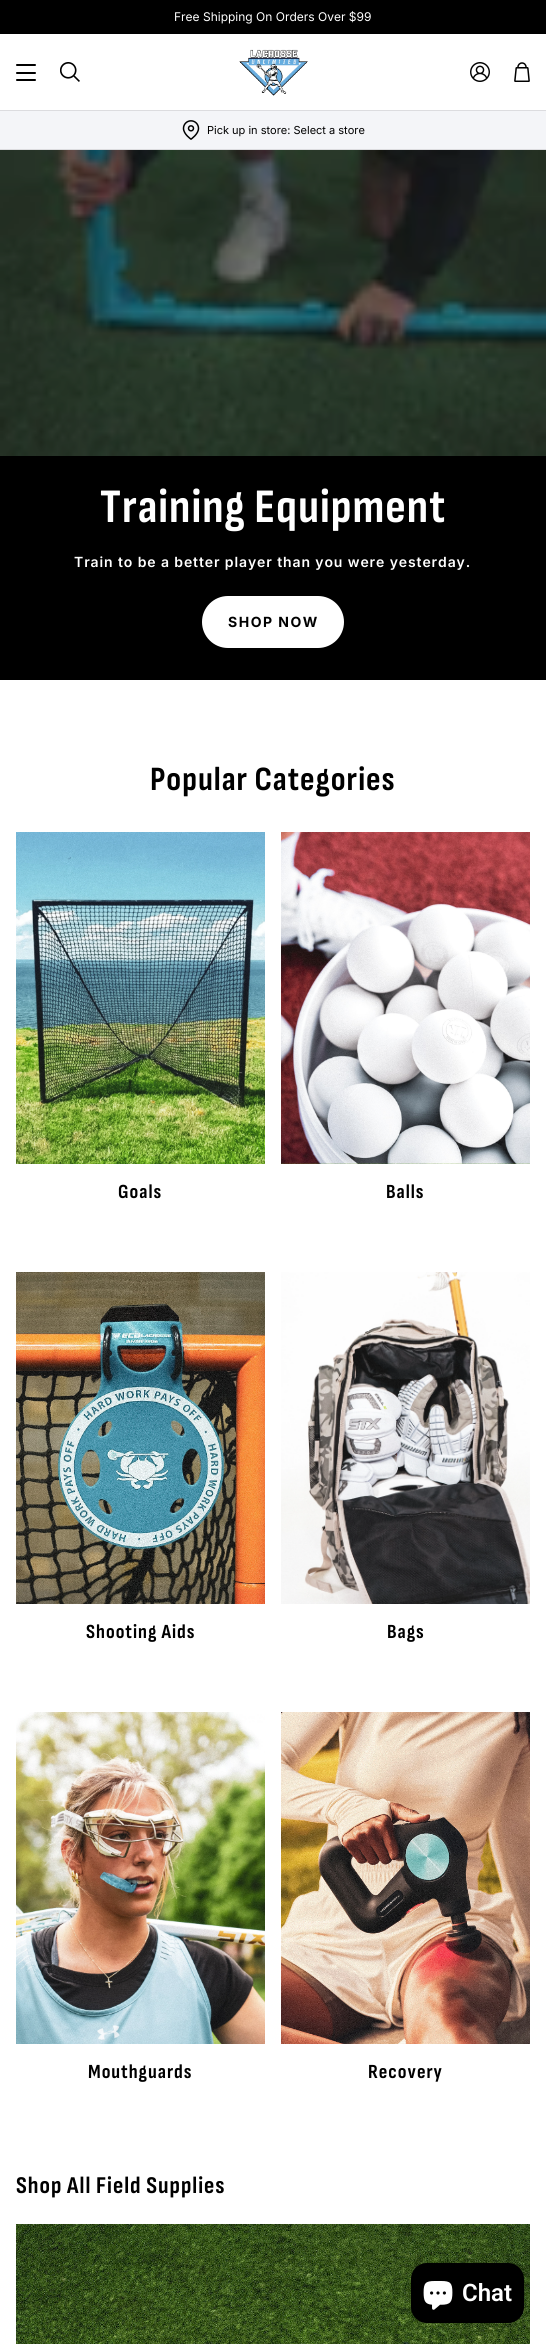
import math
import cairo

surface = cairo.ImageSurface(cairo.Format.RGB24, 546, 2344)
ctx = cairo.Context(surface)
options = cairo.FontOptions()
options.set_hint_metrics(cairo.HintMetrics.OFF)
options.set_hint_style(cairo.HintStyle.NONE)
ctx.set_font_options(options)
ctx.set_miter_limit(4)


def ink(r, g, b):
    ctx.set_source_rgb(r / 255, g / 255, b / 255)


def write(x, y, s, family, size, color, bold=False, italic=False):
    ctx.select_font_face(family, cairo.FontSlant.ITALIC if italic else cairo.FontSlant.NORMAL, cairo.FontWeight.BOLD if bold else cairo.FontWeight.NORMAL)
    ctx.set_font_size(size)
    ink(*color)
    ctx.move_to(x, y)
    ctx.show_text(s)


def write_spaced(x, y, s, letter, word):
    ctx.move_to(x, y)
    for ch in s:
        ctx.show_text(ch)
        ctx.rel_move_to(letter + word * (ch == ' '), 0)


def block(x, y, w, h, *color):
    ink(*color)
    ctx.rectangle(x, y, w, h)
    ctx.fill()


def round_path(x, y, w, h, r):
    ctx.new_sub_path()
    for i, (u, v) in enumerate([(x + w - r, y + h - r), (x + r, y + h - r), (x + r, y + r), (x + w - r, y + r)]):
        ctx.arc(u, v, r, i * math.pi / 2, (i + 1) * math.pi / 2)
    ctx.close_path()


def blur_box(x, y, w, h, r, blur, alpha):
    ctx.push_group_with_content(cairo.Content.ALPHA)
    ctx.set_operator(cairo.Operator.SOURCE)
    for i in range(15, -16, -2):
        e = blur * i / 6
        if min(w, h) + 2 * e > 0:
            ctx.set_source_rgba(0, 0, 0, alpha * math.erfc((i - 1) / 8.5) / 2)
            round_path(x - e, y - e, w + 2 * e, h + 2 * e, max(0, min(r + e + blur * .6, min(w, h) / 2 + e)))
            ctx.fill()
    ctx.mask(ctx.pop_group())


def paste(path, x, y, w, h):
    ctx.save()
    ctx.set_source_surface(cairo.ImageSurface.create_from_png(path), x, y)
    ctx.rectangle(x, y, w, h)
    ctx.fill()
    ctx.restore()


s1 = dict(family="Inter", size=12, color=(255, 255, 255))
s2 = dict(family="Inter", size=11, color=(0, 0, 0))
s3 = dict(family="Roboto SemiBold", size=24, color=(255, 255, 255))

ink(255, 255, 255)
ctx.paint()
block(0, 0, 546, 34, 0, 0, 0)
write(174, 21, "Free Shipping On Orders Over $99", **s1)
block(0, 110, 546, 1, 220, 220, 223)
ink(0, 0, 0)
round_path(16, 64, 20, 2, 1)
ctx.fill()
round_path(16, 72, 20, 2, 1)
ctx.fill()
round_path(16, 79, 20, 2, 1)
ctx.fill()
paste("pic1.png", 60, 62, 20, 20)
paste("pic2.png", 239, 49, 69, 47)
paste("pic3.png", 470, 62, 20, 20)
paste("pic4.png", 514, 62, 16, 20)
block(0, 111, 546, 38, 244, 245, 248)
block(0, 149, 546, 1, 220, 220, 223)
paste("pic5.png", 182, 120, 18, 20)
write(207, 134, "Pick up in store: Select a store", **s2)
paste("pic6.png", 0, 150, 546, 306)
block(0, 456, 546, 224, 0, 0, 0)
ctx.select_font_face("Sofia Sans Condensed", cairo.FontSlant.NORMAL, cairo.FontWeight.BOLD)
ctx.set_font_size(48)
ink(255, 255, 255)
write_spaced(100, 522, "Training Equipment", 1, 0)
ctx.select_font_face("Inter SemiBold")
ctx.set_font_size(14)
write_spaced(74, 567, "Train to be a better player than you were yesterday.", 0.9, 0)
round_path(202, 596, 142, 52, 26)
ctx.fill()
ctx.select_font_face("Inter", cairo.FontSlant.NORMAL, cairo.FontWeight.BOLD)
ink(0, 0, 0)
write_spaced(228, 627, "SHOP NOW", 1.5, 0)
ctx.select_font_face("Sofia Sans Condensed", cairo.FontSlant.NORMAL, cairo.FontWeight.BOLD)
ctx.set_font_size(34)
write_spaced(150, 790, "Popular Categories", 1, 0)
paste("pic7.png", 16, 832, 249, 332)
ctx.set_font_size(20)
write_spaced(118, 1198, "Goals", 1, 0)
paste("pic8.png", 281, 832, 249, 332)
write_spaced(386, 1198, "Balls", 1, 0)
paste("pic9.png", 16, 1272, 249, 332)
write_spaced(86, 1638, "Shooting Aids", 1, 0)
paste("pic10.png", 281, 1272, 249, 332)
write_spaced(387, 1638, "Bags", 1, 0)
paste("pic11.png", 16, 1712, 249, 332)
write_spaced(88, 2078, "Mouthguards", 1, 0)
paste("pic12.png", 281, 1712, 249, 332)
write_spaced(368, 2078, "Recovery", 1, 0)
ctx.set_font_size(24)
write_spaced(16, 2193, "Shop All Field Supplies", 1, 0)
paste("pic13.png", 16, 2224, 514, 120)
ink(0, 0, 0)
blur_box(411, 2263, 113, 60, 16, 2.5, 0.15)
ink(0, 0, 0)
round_path(411, 2263, 113, 60, 16)
ctx.fill()
paste("pic14.png", 423, 2281, 30, 29)
write(462, 2301, "Chat", **s3)
surface.write_to_png("screenshot.png")
